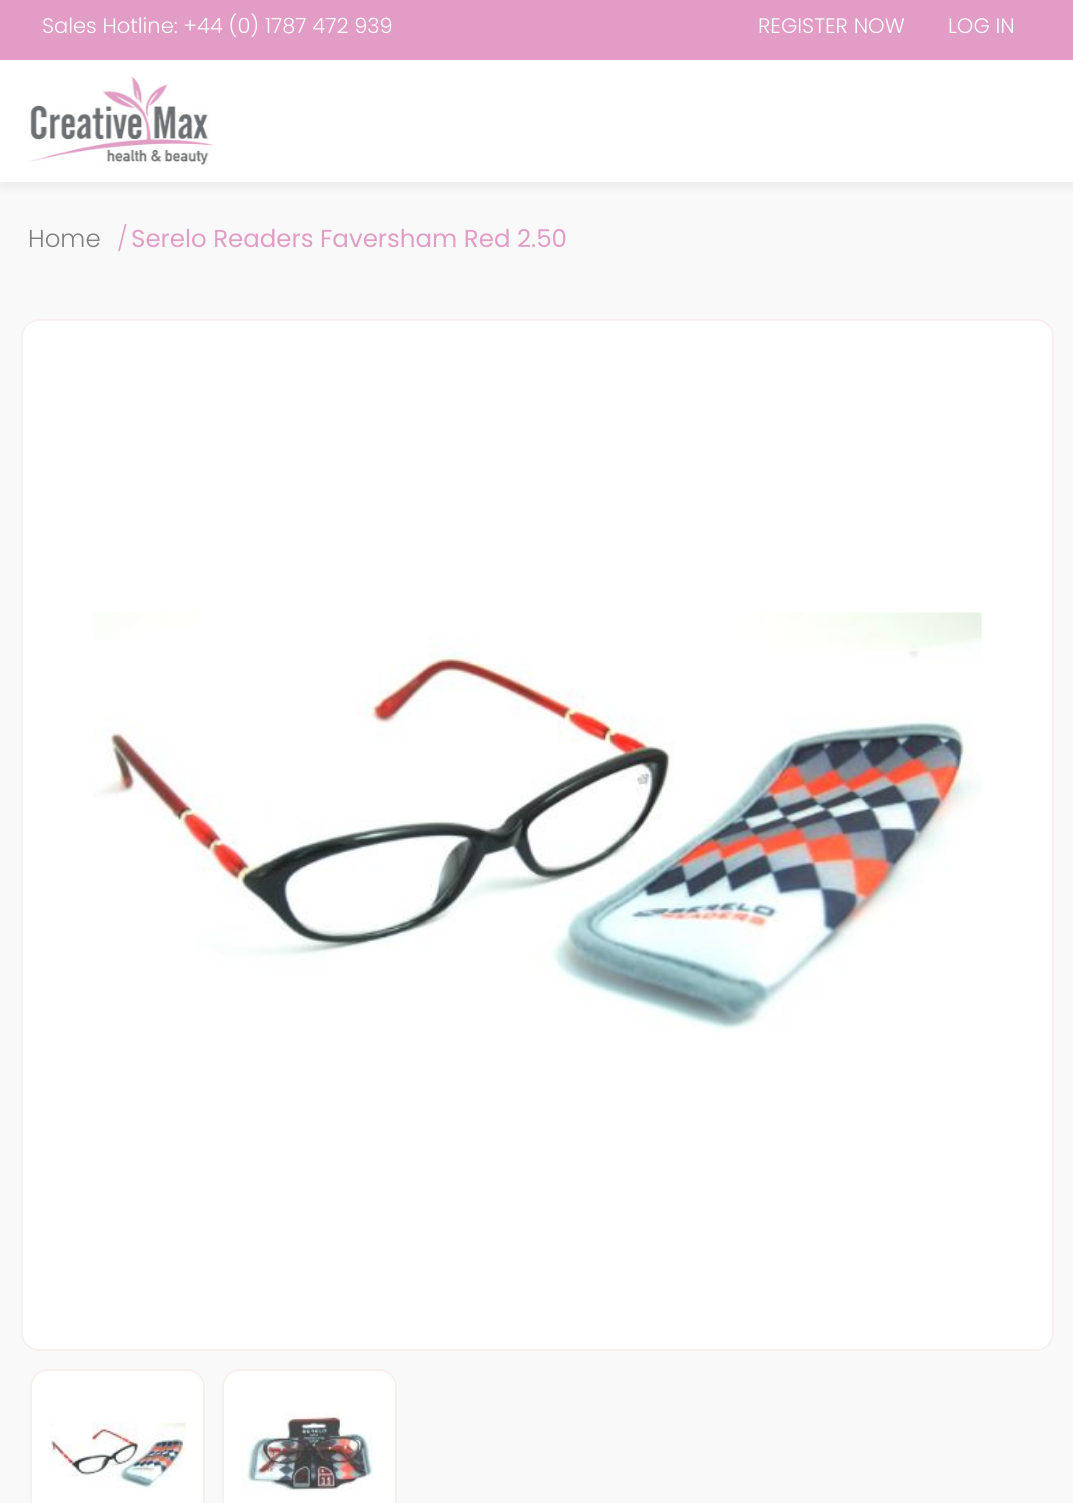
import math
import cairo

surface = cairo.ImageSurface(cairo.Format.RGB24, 1073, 1503)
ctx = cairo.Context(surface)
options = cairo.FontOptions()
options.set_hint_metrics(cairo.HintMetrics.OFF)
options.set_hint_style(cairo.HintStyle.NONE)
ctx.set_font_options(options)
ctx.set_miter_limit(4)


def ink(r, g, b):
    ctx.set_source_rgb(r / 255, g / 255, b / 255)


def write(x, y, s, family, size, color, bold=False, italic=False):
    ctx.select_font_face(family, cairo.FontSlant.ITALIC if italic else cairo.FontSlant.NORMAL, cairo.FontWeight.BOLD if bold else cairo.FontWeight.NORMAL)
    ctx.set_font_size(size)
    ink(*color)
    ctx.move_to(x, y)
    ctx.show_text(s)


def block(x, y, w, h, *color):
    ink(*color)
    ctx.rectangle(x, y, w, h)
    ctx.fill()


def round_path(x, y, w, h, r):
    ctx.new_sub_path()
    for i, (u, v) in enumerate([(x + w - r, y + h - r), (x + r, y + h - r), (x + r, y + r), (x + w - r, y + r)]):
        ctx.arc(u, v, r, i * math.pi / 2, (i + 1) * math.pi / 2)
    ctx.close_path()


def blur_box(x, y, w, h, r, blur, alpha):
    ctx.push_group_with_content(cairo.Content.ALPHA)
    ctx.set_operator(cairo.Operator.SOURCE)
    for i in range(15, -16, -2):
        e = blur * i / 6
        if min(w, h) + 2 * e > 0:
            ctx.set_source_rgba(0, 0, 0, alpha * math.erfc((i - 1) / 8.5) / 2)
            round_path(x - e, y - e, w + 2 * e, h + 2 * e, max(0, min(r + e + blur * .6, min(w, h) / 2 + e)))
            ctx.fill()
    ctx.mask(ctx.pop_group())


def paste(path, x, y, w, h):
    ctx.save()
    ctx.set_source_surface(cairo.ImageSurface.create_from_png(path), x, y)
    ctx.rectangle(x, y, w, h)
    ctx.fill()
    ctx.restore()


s1 = dict(family="Poppins Light", size=21, color=(255, 255, 255))
s2 = dict(family="Poppins Light", size=24.5, color=(128, 128, 128))
s3 = dict(family="Poppins Light", size=24.5, color=(225, 157, 197))
s4 = dict(family="Poppins", size=24.5, color=(225, 157, 197))

ink(249, 249, 249)
ctx.paint()
ink(162, 161, 161)
blur_box(0, 5, 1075, 182, 0, 5, 0.16)
block(0, 60, 1073, 122, 255, 255, 255)
block(0, 0, 1073, 60, 225, 157, 197)
write(42, 33, "Sales Hotline: +44 (0) 1787 472 939", **s1)
write(758, 33, "REGISTER NOW", **s1)
write(948, 33, "LOG IN", **s1)
paste("pic1.png", 28, 77, 186, 88)
write(28, 247, "Home", **s2)
write(117, 247, "/", **s3)
write(131, 247, "Serelo Readers Faversham Red 2.50", **s4)
ink(255, 255, 255)
round_path(22, 320, 1031, 1030, 17)
ctx.fill_preserve()
ink(249, 239, 239)
ctx.stroke()
paste("pic2.png", 93, 612, 889, 421)
ink(255, 255, 255)
round_path(31, 1370, 173, 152, 17)
ctx.fill_preserve()
ink(249, 239, 239)
ctx.stroke()
paste("pic3.png", 49, 1422, 137, 67)
ink(255, 255, 255)
round_path(223, 1370, 173, 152, 17)
ctx.fill_preserve()
ink(249, 239, 239)
ctx.stroke()
paste("pic4.png", 242, 1412, 131, 79)
surface.write_to_png("screenshot.png")
